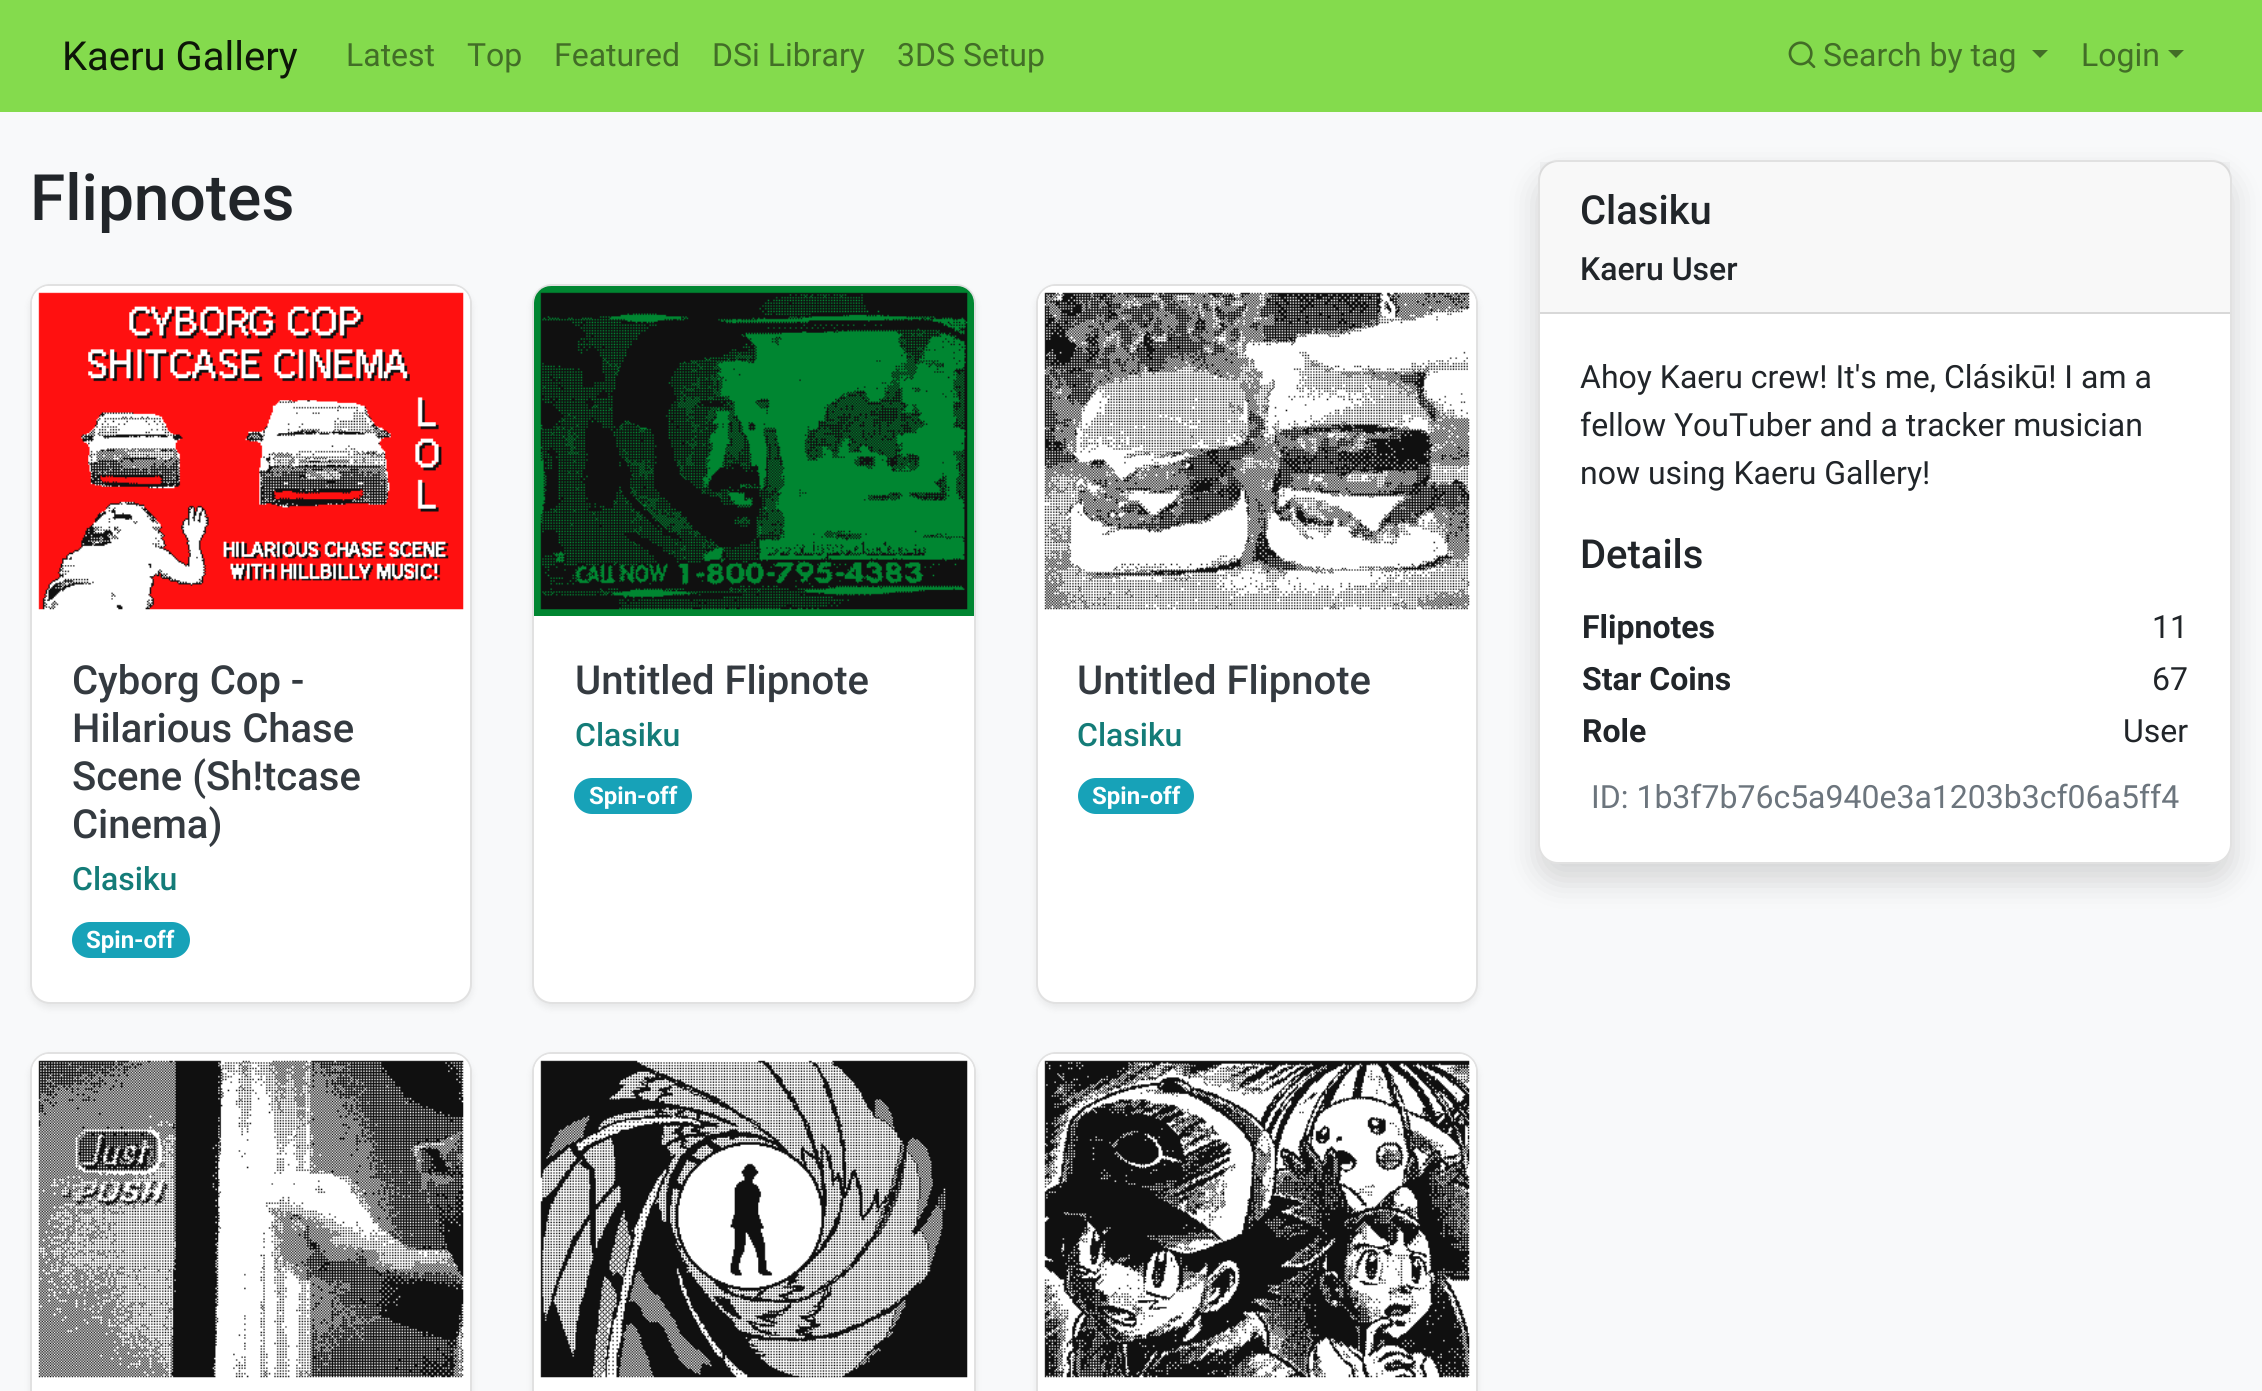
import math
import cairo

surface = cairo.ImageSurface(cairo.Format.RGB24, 2262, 1391)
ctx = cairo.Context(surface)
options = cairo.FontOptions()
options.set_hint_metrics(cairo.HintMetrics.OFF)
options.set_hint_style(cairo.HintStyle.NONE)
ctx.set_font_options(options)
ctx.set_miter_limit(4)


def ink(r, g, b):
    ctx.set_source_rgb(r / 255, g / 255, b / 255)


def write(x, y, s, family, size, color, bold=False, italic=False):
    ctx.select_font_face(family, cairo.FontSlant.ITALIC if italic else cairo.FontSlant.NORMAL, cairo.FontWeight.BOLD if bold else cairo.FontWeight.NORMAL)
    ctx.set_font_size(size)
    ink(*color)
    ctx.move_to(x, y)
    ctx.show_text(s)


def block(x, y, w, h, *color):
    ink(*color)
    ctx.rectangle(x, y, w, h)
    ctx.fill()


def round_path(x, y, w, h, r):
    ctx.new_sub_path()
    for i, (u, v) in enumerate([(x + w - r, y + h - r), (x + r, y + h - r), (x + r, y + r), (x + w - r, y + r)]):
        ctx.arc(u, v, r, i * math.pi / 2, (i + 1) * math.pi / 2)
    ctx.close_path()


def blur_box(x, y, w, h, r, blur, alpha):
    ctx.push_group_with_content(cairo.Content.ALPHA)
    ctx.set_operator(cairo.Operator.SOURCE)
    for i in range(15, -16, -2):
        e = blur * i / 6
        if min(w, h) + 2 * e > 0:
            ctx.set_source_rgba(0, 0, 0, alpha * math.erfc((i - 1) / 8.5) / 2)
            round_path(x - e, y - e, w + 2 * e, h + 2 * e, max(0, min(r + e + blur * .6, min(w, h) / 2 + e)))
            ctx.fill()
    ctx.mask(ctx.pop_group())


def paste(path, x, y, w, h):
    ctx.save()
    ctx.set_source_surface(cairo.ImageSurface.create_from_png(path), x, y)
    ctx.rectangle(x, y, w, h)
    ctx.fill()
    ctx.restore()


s1 = dict(family="Roboto", size=40, color=(13, 22, 8))
s2 = dict(family="Roboto", size=32, color=(66, 110, 39))
s3 = dict(family="Roboto Medium", size=64, color=(33, 37, 41))
s4 = dict(family="Roboto Medium", size=40, color=(52, 58, 64))
s5 = dict(family="Roboto Medium", size=32, color=(20, 124, 120))
s6 = dict(family="Roboto", size=24, color=(255, 255, 255), bold=True)
s7 = dict(family="Roboto Medium", size=40, color=(33, 37, 41))
s8 = dict(family="Roboto Medium", size=32, color=(33, 37, 41))
s9 = dict(family="Roboto", size=32, color=(33, 37, 41))
s10 = dict(family="Roboto", size=32, color=(33, 37, 41), bold=True)
s11 = dict(family="Roboto", size=32, color=(108, 117, 125))

ink(248, 249, 250)
ctx.paint()
block(0, 0, 2262, 112, 132, 219, 77)
write(62, 70, "Kaeru Gallery", **s1)
write(346, 66, "Latest", **s2)
write(467, 66, "Top", **s2)
write(554, 66, "Featured", **s2)
write(712, 66, "DSi Library", **s2)
write(897, 66, "3DS Setup", **s2)
paste("pic1.png", 1788, 41, 28, 27)
write(1823, 66, "Search by tag", **s2)
ctx.new_path()
ctx.move_to(2032, 50)
ctx.line_to(2048, 50)
ctx.line_to(2040, 58)
ctx.close_path()
ctx.fill()
write(2081, 66, "Login", **s2)
ctx.new_path()
ctx.move_to(2168, 50)
ctx.line_to(2184, 50)
ctx.line_to(2176, 58)
ctx.close_path()
ctx.fill()
write(30, 220, "Flipnotes", **s3)
ink(0, 0, 0)
blur_box(30, 288, 442, 720, 20, 4, 0.07)
ink(255, 255, 255)
round_path(30, 284, 442, 720, 20)
ctx.fill()
round_path(31, 285, 440, 718, 19)
ctx.set_source_rgba(0, 0, 0, 0.12)
ctx.stroke()
paste("pic2.png", 32, 286, 438, 324)
write(72, 694, "Cyborg Cop -", **s4)
write(72, 742, "Hilarious Chase", **s4)
write(72, 790, "Scene (Sh!tcase", **s4)
write(72, 838, "Cinema)", **s4)
write(72, 890, "Clasiku", **s5)
ink(23, 162, 184)
round_path(72, 922, 118, 36, 18)
ctx.fill()
write(86, 948, "Spin-off", **s6)
ink(0, 0, 0)
blur_box(532, 288, 444, 720, 20, 4, 0.07)
ink(255, 255, 255)
round_path(532, 284, 444, 720, 20)
ctx.fill()
round_path(533, 285, 442, 718, 19)
ctx.set_source_rgba(0, 0, 0, 0.12)
ctx.stroke()
paste("pic3.png", 534, 286, 440, 330)
write(575, 694, "Untitled Flipnote", **s4)
write(575, 746, "Clasiku", **s5)
ink(23, 162, 184)
round_path(574, 778, 118, 36, 18)
ctx.fill()
write(589, 804, "Spin-off", **s6)
ink(0, 0, 0)
blur_box(1036, 288, 442, 720, 20, 4, 0.07)
ink(255, 255, 255)
round_path(1036, 284, 442, 720, 20)
ctx.fill()
round_path(1037, 285, 440, 718, 19)
ctx.set_source_rgba(0, 0, 0, 0.12)
ctx.stroke()
paste("pic4.png", 1038, 286, 438, 324)
write(1077, 694, "Untitled Flipnote", **s4)
write(1077, 746, "Clasiku", **s5)
ink(23, 162, 184)
round_path(1078, 778, 116, 36, 18)
ctx.fill()
write(1092, 804, "Spin-off", **s6)
ink(0, 0, 0)
blur_box(30, 1056, 442, 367, 20, 4, 0.07)
ink(255, 255, 255)
round_path(30, 1052, 442, 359, 20)
ctx.fill()
round_path(31, 1053, 440, 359, 19)
ctx.set_source_rgba(0, 0, 0, 0.12)
ctx.stroke()
paste("pic5.png", 32, 1054, 438, 324)
ink(0, 0, 0)
blur_box(532, 1056, 444, 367, 20, 4, 0.07)
ink(255, 255, 255)
round_path(532, 1052, 444, 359, 20)
ctx.fill()
round_path(533, 1053, 442, 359, 19)
ctx.set_source_rgba(0, 0, 0, 0.12)
ctx.stroke()
paste("pic6.png", 534, 1054, 440, 324)
ink(0, 0, 0)
blur_box(1036, 1056, 442, 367, 20, 4, 0.07)
ink(255, 255, 255)
round_path(1036, 1052, 442, 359, 20)
ctx.fill()
round_path(1037, 1053, 440, 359, 19)
ctx.set_source_rgba(0, 0, 0, 0.12)
ctx.stroke()
paste("pic7.png", 1038, 1054, 438, 324)
ink(0, 0, 0)
blur_box(1538, 176, 694, 704, 20, 16, 0.15)
ink(255, 255, 255)
round_path(1538, 160, 694, 704, 20)
ctx.fill()
round_path(1539, 161, 692, 702, 19)
ctx.set_source_rgba(0, 0, 0, 0.12)
ctx.stroke()
ctx.set_source_rgba(0, 0, 0, 0.03)
ctx.rectangle(1540, 162, 690, 150)
ctx.fill()
block(1540, 312, 690, 2, 216, 216, 216)
write(1580, 224, "Clasiku", **s7)
write(1580, 280, "Kaeru User", **s8)
write(1580, 388, "Ahoy Kaeru crew! It's me, Clásikū! I am a", **s9)
write(1580, 436, "fellow YouTuber and a tracker musician", **s9)
write(1580, 484, "now using Kaeru Gallery!", **s9)
write(1580, 568, "Details", **s7)
write(1582, 638, "Flipnotes", **s10)
write(2152, 638, "11", **s9)
write(1582, 690, "Star Coins", **s10)
write(2152, 690, "67", **s9)
write(1582, 742, "Role", **s10)
write(2123, 742, "User", **s9)
write(1591, 808, "ID: 1b3f7b76c5a940e3a1203b3cf06a5ff4", **s11)
surface.write_to_png("screenshot.png")
